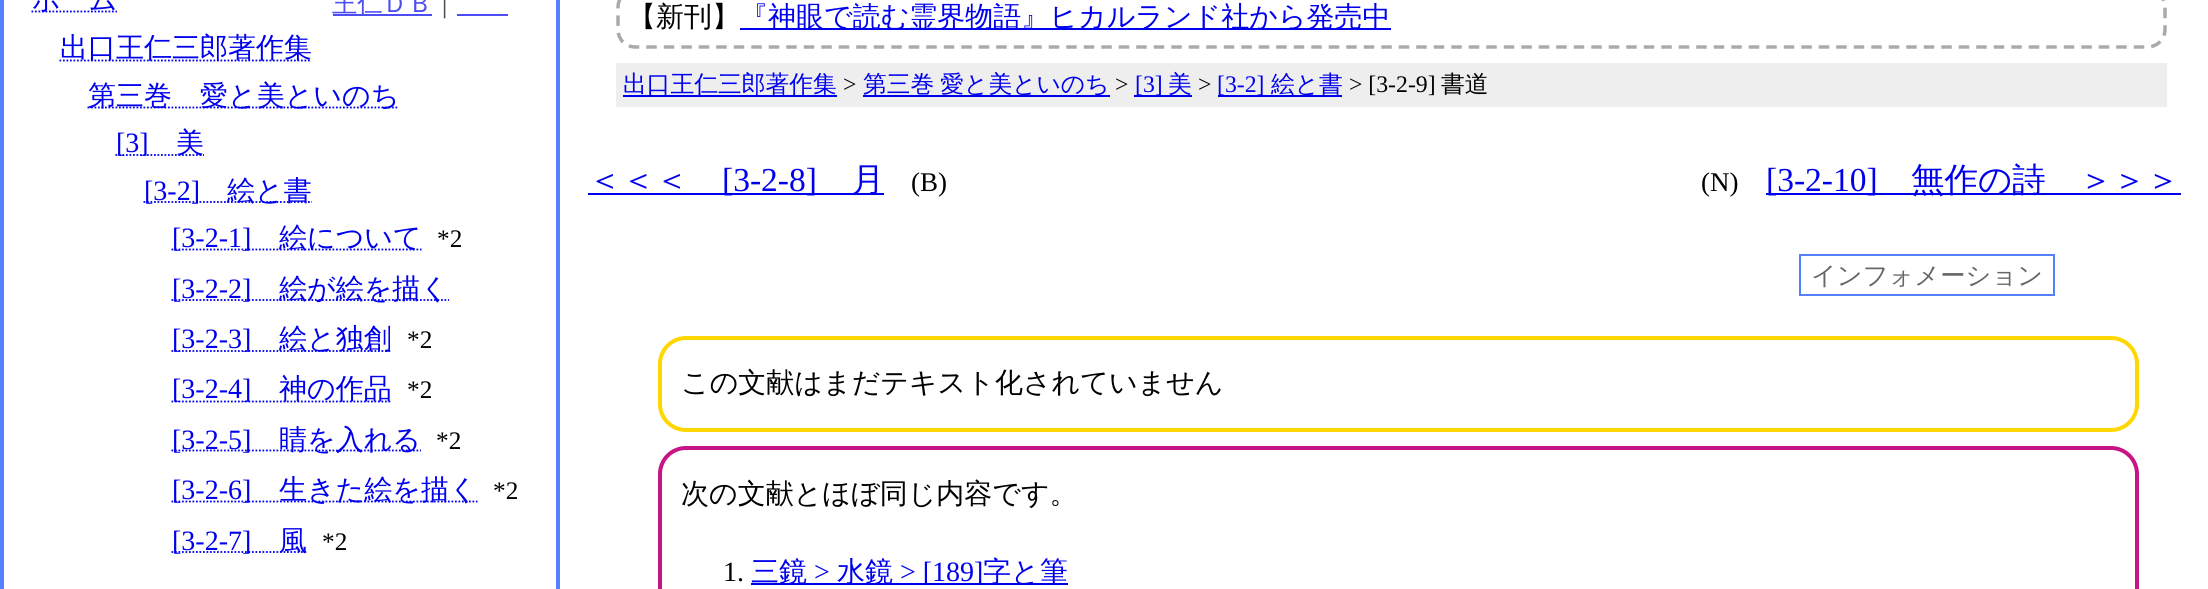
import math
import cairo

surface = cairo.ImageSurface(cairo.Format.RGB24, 2208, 589)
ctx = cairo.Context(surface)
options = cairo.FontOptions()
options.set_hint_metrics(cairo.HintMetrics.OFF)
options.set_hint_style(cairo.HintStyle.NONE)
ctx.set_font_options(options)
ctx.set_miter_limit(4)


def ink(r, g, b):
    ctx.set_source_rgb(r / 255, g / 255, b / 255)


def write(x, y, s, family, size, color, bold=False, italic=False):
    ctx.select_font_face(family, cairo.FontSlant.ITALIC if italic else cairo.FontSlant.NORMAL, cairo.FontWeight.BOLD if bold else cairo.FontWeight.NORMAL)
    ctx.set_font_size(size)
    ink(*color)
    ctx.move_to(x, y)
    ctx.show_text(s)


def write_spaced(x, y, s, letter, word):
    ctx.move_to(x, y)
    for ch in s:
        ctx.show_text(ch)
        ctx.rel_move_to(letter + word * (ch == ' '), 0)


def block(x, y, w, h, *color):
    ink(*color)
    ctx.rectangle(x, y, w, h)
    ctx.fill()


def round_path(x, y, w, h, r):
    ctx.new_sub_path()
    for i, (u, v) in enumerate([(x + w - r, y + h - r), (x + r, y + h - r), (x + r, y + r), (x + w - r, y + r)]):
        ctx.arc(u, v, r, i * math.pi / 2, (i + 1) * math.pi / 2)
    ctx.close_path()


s1 = dict(family="WenQuanYi Zen Hei Medium", size=28, color=(0, 0, 238))
s2 = dict(family="Liberation Serif", size=28, color=(0, 0, 238))
s3 = dict(family="Liberation Serif", size=25.25, color=(0, 0, 0))
s4 = dict(family="WenQuanYi Zen Hei Medium", size=25.25, color=(77, 77, 243))
s5 = dict(family="WenQuanYi Zen Hei Medium", size=25.25, color=(77, 77, 77))
s6 = dict(family="WenQuanYi Zen Hei Medium", size=28, color=(0, 0, 0))
s7 = dict(family="WenQuanYi Zen Hei Medium", size=23.75, color=(0, 0, 238))
s8 = dict(family="Liberation Serif", size=23.75, color=(0, 0, 0))
s9 = dict(family="Liberation Serif", size=23.75, color=(0, 0, 238))
s10 = dict(family="WenQuanYi Zen Hei Medium", size=23.75, color=(0, 0, 0))
s11 = dict(family="WenQuanYi Zen Hei Medium", size=33.5, color=(0, 0, 238))
s12 = dict(family="Liberation Serif", size=33.5, color=(0, 0, 238))
s13 = dict(family="Liberation Serif", size=27, color=(0, 0, 0))
s14 = dict(family="WenQuanYi Zen Hei Medium", size=25.25, color=(102, 102, 102))
s15 = dict(family="Liberation Serif", size=28, color=(0, 0, 0))

ink(255, 255, 255)
ctx.paint()
ctx.rectangle(2, -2, 556, 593)
ink(86, 127, 255)
ctx.set_line_width(4)
ctx.stroke()
ctx.new_path()
ctx.move_to(31.5, 11.5)
ctx.line_to(117, 11.5)
ink(0, 0, 238)
ctx.set_line_width(1.8)
ctx.set_dash([1.75, 1.75])
ctx.stroke()
write(32, 9, "ホーム", **s1)
ctx.new_path()
ctx.move_to(59.5, 60.5)
ctx.line_to(311.5, 60.5)
ctx.stroke()
write(60, 57, "出口王仁三郎著作集", **s1)
ctx.new_path()
ctx.move_to(87.5, 107.5)
ctx.line_to(399, 107.5)
ctx.stroke()
write(88, 105, "第三巻　愛と美といのち", **s1)
ctx.new_path()
ctx.move_to(115.5, 155)
ctx.line_to(204, 155)
ctx.stroke()
write(116, 152, "[3]", **s2)
write(176, 152, "美", **s1)
ctx.new_path()
ctx.move_to(143.5, 202)
ctx.line_to(312, 202)
ctx.stroke()
write(144, 200, "[3-2]", **s2)
write(227, 200, "絵と書", **s1)
ctx.new_path()
ctx.move_to(171.5, 249.5)
ctx.line_to(421.5, 249.5)
ctx.stroke()
write(172, 247, "[3-2-1]", **s2)
write(279, 247, "絵について", **s1)
write(437, 247, "*2", **s3)
ctx.new_path()
ctx.move_to(171.5, 300)
ctx.line_to(449, 300)
ink(0, 0, 238)
ctx.stroke()
write(172, 298, "[3-2-2]", **s2)
write(279, 298, "絵が絵を描く", **s1)
ctx.new_path()
ctx.move_to(171.5, 351)
ctx.line_to(391.5, 351)
ctx.stroke()
write(172, 348, "[3-2-3]", **s2)
write(279, 348, "絵と独創", **s1)
write(407, 348, "*2", **s3)
ctx.new_path()
ctx.move_to(171.5, 401.5)
ctx.line_to(391.5, 401.5)
ink(0, 0, 238)
ctx.stroke()
write(172, 398, "[3-2-4]", **s2)
write(279, 398, "神の作品", **s1)
write(407, 398, "*2", **s3)
ctx.new_path()
ctx.move_to(171.5, 450.5)
ctx.line_to(421, 450.5)
ink(0, 0, 238)
ctx.stroke()
write(172, 449, "[3-2-5]", **s2)
write(279, 449, "睛を入れる", **s1)
write(436, 449, "*2", **s3)
ctx.new_path()
ctx.move_to(171.5, 501.5)
ctx.line_to(477.5, 501.5)
ink(0, 0, 238)
ctx.stroke()
write(172, 499, "[3-2-6]", **s2)
write(279, 499, "生きた絵を描く", **s1)
write(493, 499, "*2", **s3)
ctx.new_path()
ctx.move_to(171.5, 552)
ctx.line_to(307, 552)
ink(0, 0, 238)
ctx.stroke()
write(172, 550, "[3-2-7]", **s2)
write(279, 550, "風", **s1)
write(322, 550, "*2", **s3)
block(333, 14, 99, 2, 77, 77, 243)
write(332, 12, "王仁ＤＢ", **s4)
write(432, 12, "｜", **s5)
block(457, 14, 51, 2, 77, 77, 243)
ctx.new_path()
ctx.move_to(635.5, -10.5)
ctx.line_to(2147, -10.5)
ctx.curve_to(2157, -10.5, 2165, -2.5, 2165, 7.5)
ctx.line_to(2165, 29.5)
ctx.curve_to(2165, 39.5, 2157, 47, 2147, 47)
ctx.line_to(635.5, 47)
ctx.curve_to(625.5, 47, 618, 39.5, 618, 29.5)
ctx.line_to(618, 7.5)
ctx.curve_to(618, -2.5, 625.5, -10.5, 635.5, -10.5)
ctx.close_path()
ink(170, 170, 170)
ctx.set_line_width(3.5)
ctx.set_dash([10.5, 7])
ctx.stroke()
write(628, 26, "【新刊】", **s6)
block(740, 28, 651, 2, 0, 0, 238)
write(740, 26, "『神眼で読む霊界物語』ヒカルランド社から発売中", **s1)
block(616, 63, 1551, 44, 238, 238, 238)
block(623, 95, 214, 2, 0, 0, 238)
write(623, 92, "出口王仁三郎著作集", **s7)
write(843, 92, ">", **s8)
block(863, 95, 247, 2, 0, 0, 238)
ctx.select_font_face("WenQuanYi Zen Hei Medium")
write_spaced(863, 92, "第三巻 愛と美といのち", 0, -1)
write(1115, 92, ">", **s8)
block(1134, 95, 58, 2, 0, 0, 238)
write(1135, 92, "[3]", **s9)
write(1168, 92, "美", **s7)
write(1198, 92, ">", **s8)
block(1218, 95, 124, 2, 0, 0, 238)
write(1217, 92, "[3-2]", **s9)
write(1271, 92, "絵と書", **s7)
write(1349, 92, "> [3-2-9]", **s8)
write(1441, 92, "書道", **s10)
write(588, 191, "＜＜＜", **s11)
block(588, 193, 296, 2, 0, 0, 238)
write(722, 191, "[3-2-8]", **s12)
write(851, 191, "月", **s11)
write(911, 191, "(B)", **s13)
write(1701, 191, "(N)", **s13)
block(1766, 193, 415, 2, 0, 0, 238)
write(1766, 191, "[3-2-10]", **s12)
write(1911, 191, "無作の詩　＞＞＞", **s11)
ctx.rectangle(1800, 255, 254, 40)
ink(86, 127, 255)
ctx.set_line_width(2)
ctx.set_dash([])
ctx.stroke()
write(1811, 284, "インフォメーション", **s14)
round_path(660, 338, 1477, 92, 26)
ink(255, 215, 0)
ctx.set_line_width(4)
ctx.stroke()
write(681, 392, "この文献はまだテキスト化されていません", **s6)
round_path(660, 448, 1477, 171, 26)
ink(199, 21, 133)
ctx.stroke()
write(681, 503, "次の文献とほぼ同じ内容です。", **s6)
write(723, 581, "1.", **s15)
block(751, 583, 317, 2, 0, 0, 238)
write(751, 581, "三鏡", **s1)
write(814, 581, ">", **s2)
write(837, 581, "水鏡", **s1)
write(900, 581, "> [189]", **s2)
write(983, 581, "字と筆", **s1)
surface.write_to_png("screenshot.png")
